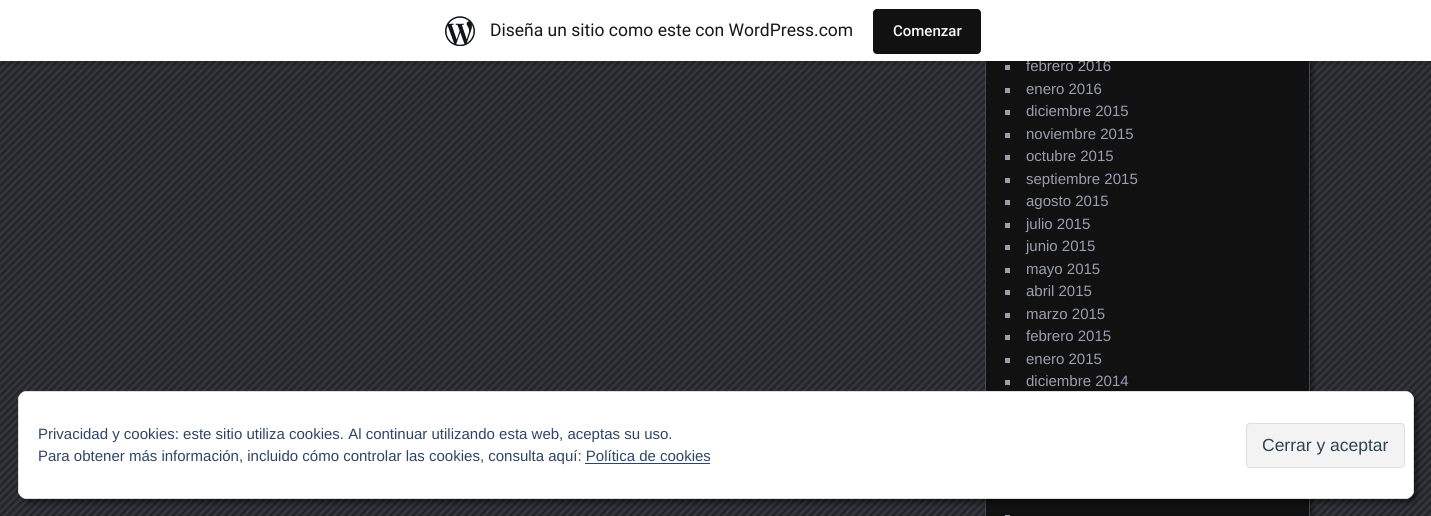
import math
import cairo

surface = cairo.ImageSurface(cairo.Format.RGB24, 1431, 516)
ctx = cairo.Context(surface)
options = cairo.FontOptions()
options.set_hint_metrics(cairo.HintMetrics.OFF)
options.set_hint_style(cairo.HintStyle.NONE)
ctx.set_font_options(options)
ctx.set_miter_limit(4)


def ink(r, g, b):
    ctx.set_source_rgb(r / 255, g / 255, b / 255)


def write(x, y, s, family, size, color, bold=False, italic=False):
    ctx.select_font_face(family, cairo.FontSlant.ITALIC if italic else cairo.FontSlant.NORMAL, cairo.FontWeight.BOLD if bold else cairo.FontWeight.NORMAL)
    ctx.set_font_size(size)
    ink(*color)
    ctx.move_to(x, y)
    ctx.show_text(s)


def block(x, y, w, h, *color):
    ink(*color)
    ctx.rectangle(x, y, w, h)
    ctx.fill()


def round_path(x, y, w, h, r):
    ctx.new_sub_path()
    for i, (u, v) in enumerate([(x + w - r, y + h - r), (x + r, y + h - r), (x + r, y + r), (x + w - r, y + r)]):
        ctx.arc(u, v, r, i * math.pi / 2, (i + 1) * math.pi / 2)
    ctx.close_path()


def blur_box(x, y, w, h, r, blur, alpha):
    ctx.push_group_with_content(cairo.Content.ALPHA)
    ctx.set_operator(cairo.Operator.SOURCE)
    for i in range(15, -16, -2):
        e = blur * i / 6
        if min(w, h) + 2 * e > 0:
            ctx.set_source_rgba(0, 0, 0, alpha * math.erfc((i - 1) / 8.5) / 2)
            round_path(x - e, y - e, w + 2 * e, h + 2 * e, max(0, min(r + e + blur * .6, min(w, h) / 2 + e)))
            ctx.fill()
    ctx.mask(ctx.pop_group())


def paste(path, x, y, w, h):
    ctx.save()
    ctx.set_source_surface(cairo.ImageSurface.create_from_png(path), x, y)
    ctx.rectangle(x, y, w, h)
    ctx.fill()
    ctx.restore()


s1 = dict(family="Liberation Sans", size=15, color=(152, 158, 174))
s2 = dict(family="Roboto", size=17.5, color=(23, 23, 23))
s3 = dict(family="Roboto Medium", size=15, color=(246, 247, 247))
s4 = dict(family="Liberation Sans", size=15, color=(46, 68, 103))
s5 = dict(family="Liberation Sans", size=17.5, color=(46, 68, 83))

ink(32, 34, 40)
ctx.paint()
paste("pic1.png", 0, 61, 1431, 455)
ink(0, 0, 0)
blur_box(988, -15, 325, 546, 9, 2, 0.45)
block(986, 61, 323, 455, 17, 17, 17)
ctx.rectangle(985.5, -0.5, 324, 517)
ink(68, 72, 85)
ctx.set_line_width(1)
ctx.stroke()
ctx.set_source_rgba(0, 0, 0, 0.08)
ctx.new_path()
ctx.move_to(1, 61)
ctx.line_to(1, 65)
ctx.line_to(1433, 65)
ctx.line_to(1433, 4)
ctx.line_to(1431, 4)
ctx.line_to(1431, 61)
ctx.close_path()
ctx.fill()
write(1026, 71, "febrero 2016", **s1)
block(0, 0, 1431, 61, 255, 255, 255)
paste("pic2.png", 445, 16, 30, 30)
write(490, 36, "Diseña un sitio como este con WordPress.com", **s2)
ink(17, 17, 17)
round_path(873, 9, 108, 45, 4)
ctx.fill()
write(893, 36, "Comenzar", **s3)
block(1005, 65, 5, 5, 152, 158, 174)
block(1005, 88, 5, 5, 152, 158, 174)
write(1026, 94, "enero 2016", **s1)
block(1005, 110, 5, 5, 152, 158, 174)
write(1026, 116, "diciembre 2015", **s1)
block(1005, 133, 5, 5, 152, 158, 174)
write(1026, 139, "noviembre 2015", **s1)
block(1005, 155, 5, 5, 152, 158, 174)
write(1026, 161, "octubre 2015", **s1)
block(1005, 178, 5, 5, 152, 158, 174)
write(1026, 184, "septiembre 2015", **s1)
block(1005, 200, 5, 5, 152, 158, 174)
write(1026, 206, "agosto 2015", **s1)
block(1005, 223, 5, 5, 152, 158, 174)
write(1026, 229, "julio 2015", **s1)
block(1005, 245, 5, 5, 152, 158, 174)
write(1026, 251, "junio 2015", **s1)
block(1005, 268, 5, 5, 152, 158, 174)
write(1026, 274, "mayo 2015", **s1)
block(1005, 290, 5, 5, 152, 158, 174)
write(1026, 296, "abril 2015", **s1)
block(1005, 313, 5, 5, 152, 158, 174)
write(1026, 319, "marzo 2015", **s1)
block(1005, 335, 5, 5, 152, 158, 174)
write(1026, 341, "febrero 2015", **s1)
block(1005, 358, 5, 5, 152, 158, 174)
write(1026, 364, "enero 2015", **s1)
block(1005, 380, 5, 5, 152, 158, 174)
write(1026, 386, "diciembre 2014", **s1)
block(1005, 515, 5, 1, 152, 158, 174)
ink(0, 0, 0)
blur_box(21, 395, 1397, 108, 9, 2.5, 0.45)
ink(255, 255, 255)
round_path(18, 391, 1396, 108, 9)
ctx.fill()
ink(222, 222, 222)
ctx.set_fill_rule(cairo.FillRule.EVEN_ODD)
ctx.new_path()
ctx.move_to(18, 400)
ctx.line_to(18, 490)
ctx.curve_to(18, 491, 18, 493, 19, 494)
ctx.line_to(19, 396)
ctx.close_path()
ctx.move_to(27, 391)
ctx.line_to(23, 392)
ctx.line_to(1409, 392)
ctx.line_to(1405, 391)
ctx.close_path()
ctx.move_to(1414, 400)
ctx.line_to(1413, 396)
ctx.line_to(1413, 494)
ctx.curve_to(1414, 493, 1414, 491, 1414, 490)
ctx.close_path()
ctx.move_to(1405, 499)
ctx.line_to(1409, 498)
ctx.line_to(23, 498)
ctx.line_to(27, 499)
ctx.close_path()
ctx.fill()
write(38, 439, "Privacidad y cookies: este sitio utiliza cookies. Al continuar utilizando esta web, aceptas su uso.", **s4)
ink(243, 243, 243)
round_path(1246.5, 423.5, 158, 44, 3.5)
ctx.fill_preserve()
ink(222, 222, 222)
ctx.stroke()
write(1262, 451, "Cerrar y aceptar", **s5)
write(38, 461, "Para obtener más información, incluido cómo controlar las cookies, consulta aquí: Política de cookies", **s4)
block(585, 463, 125, 1, 46, 68, 103)
surface.write_to_png("screenshot.png")
